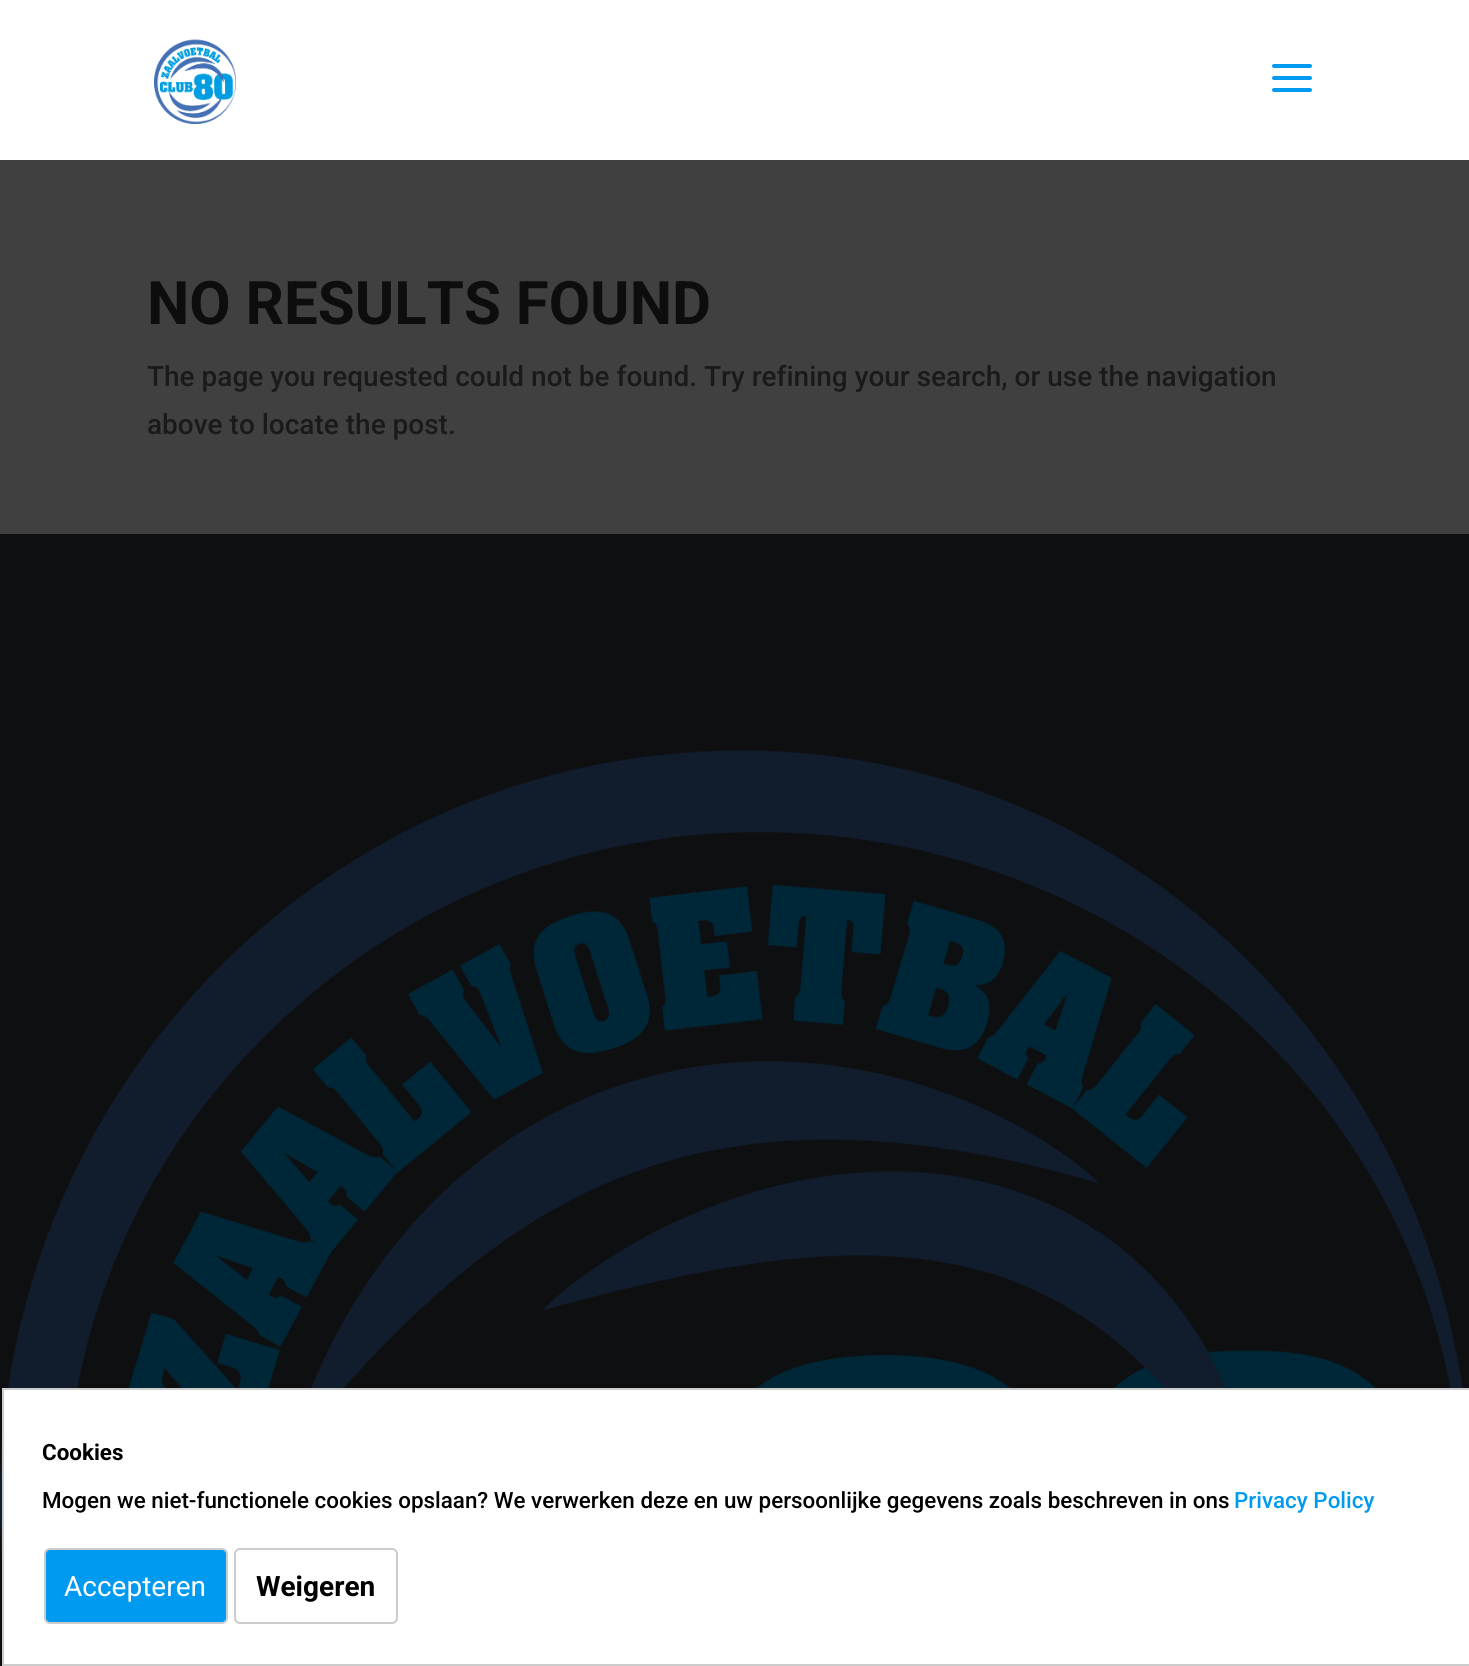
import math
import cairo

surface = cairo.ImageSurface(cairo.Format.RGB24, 1469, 1666)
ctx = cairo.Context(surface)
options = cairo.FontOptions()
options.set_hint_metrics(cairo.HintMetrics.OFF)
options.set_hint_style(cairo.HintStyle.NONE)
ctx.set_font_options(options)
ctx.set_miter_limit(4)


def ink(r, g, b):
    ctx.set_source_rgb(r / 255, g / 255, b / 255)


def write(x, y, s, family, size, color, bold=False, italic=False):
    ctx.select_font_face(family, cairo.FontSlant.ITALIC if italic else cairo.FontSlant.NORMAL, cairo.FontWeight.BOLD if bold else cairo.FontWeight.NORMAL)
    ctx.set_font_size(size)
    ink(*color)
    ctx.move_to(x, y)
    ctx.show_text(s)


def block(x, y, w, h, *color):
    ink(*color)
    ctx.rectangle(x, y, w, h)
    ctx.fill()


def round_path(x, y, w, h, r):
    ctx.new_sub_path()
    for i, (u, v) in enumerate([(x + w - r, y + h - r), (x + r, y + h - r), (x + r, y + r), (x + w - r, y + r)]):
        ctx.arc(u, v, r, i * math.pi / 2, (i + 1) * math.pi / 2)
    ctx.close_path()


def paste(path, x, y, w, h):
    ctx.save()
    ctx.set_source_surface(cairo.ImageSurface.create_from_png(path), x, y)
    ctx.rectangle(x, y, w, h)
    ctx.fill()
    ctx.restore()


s1 = dict(family="Roboto", size=60, color=(13, 13, 13), bold=True)
s2 = dict(family="Roboto Medium", size=28, color=(26, 26, 26))
s3 = dict(family="Roboto", size=22.4, color=(0, 0, 0), bold=True)
s4 = dict(family="Roboto Medium", size=22.4, color=(0, 0, 0))
s5 = dict(family="Roboto Medium", size=22.4, color=(0, 154, 241))
s6 = dict(family="Roboto", size=28, color=(255, 255, 255))
s7 = dict(family="Roboto", size=28, color=(0, 0, 0), bold=True)

ink(64, 64, 64)
ctx.paint()
block(0, 0, 1469, 160, 255, 255, 255)
paste("pic1.png", 154, 39, 82, 85)
paste("pic2.png", 1272, 64, 40, 28)
write(147, 324, "NO RESULTS FOUND", **s1)
write(147, 386, "The page you requested could not be found. Try refining your search, or use the navigation", **s2)
write(147, 434, "above to locate the post.", **s2)
block(0, 534, 1469, 1132, 14, 15, 16)
paste("pic3.png", 0, 750, 1463, 814)
ink(255, 255, 255)
ctx.rectangle(3, 1389, 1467, 276)
ctx.fill_preserve()
ink(204, 204, 204)
ctx.stroke()
write(42, 1460, "Cookies", **s3)
write(42, 1508, "Mogen we niet-functionele cookies opslaan? We verwerken deze en uw persoonlijke gegevens zoals beschreven in ons", **s4)
write(1234, 1508, "Privacy Policy", **s5)
round_path(45, 1549, 182, 74, 5)
ctx.fill_preserve()
ink(204, 204, 204)
ctx.stroke()
write(64, 1596, "Accepteren", **s6)
round_path(235, 1549, 162, 74, 5)
ink(204, 204, 204)
ctx.stroke()
write(256, 1596, "Weigeren", **s7)
surface.write_to_png("screenshot.png")
